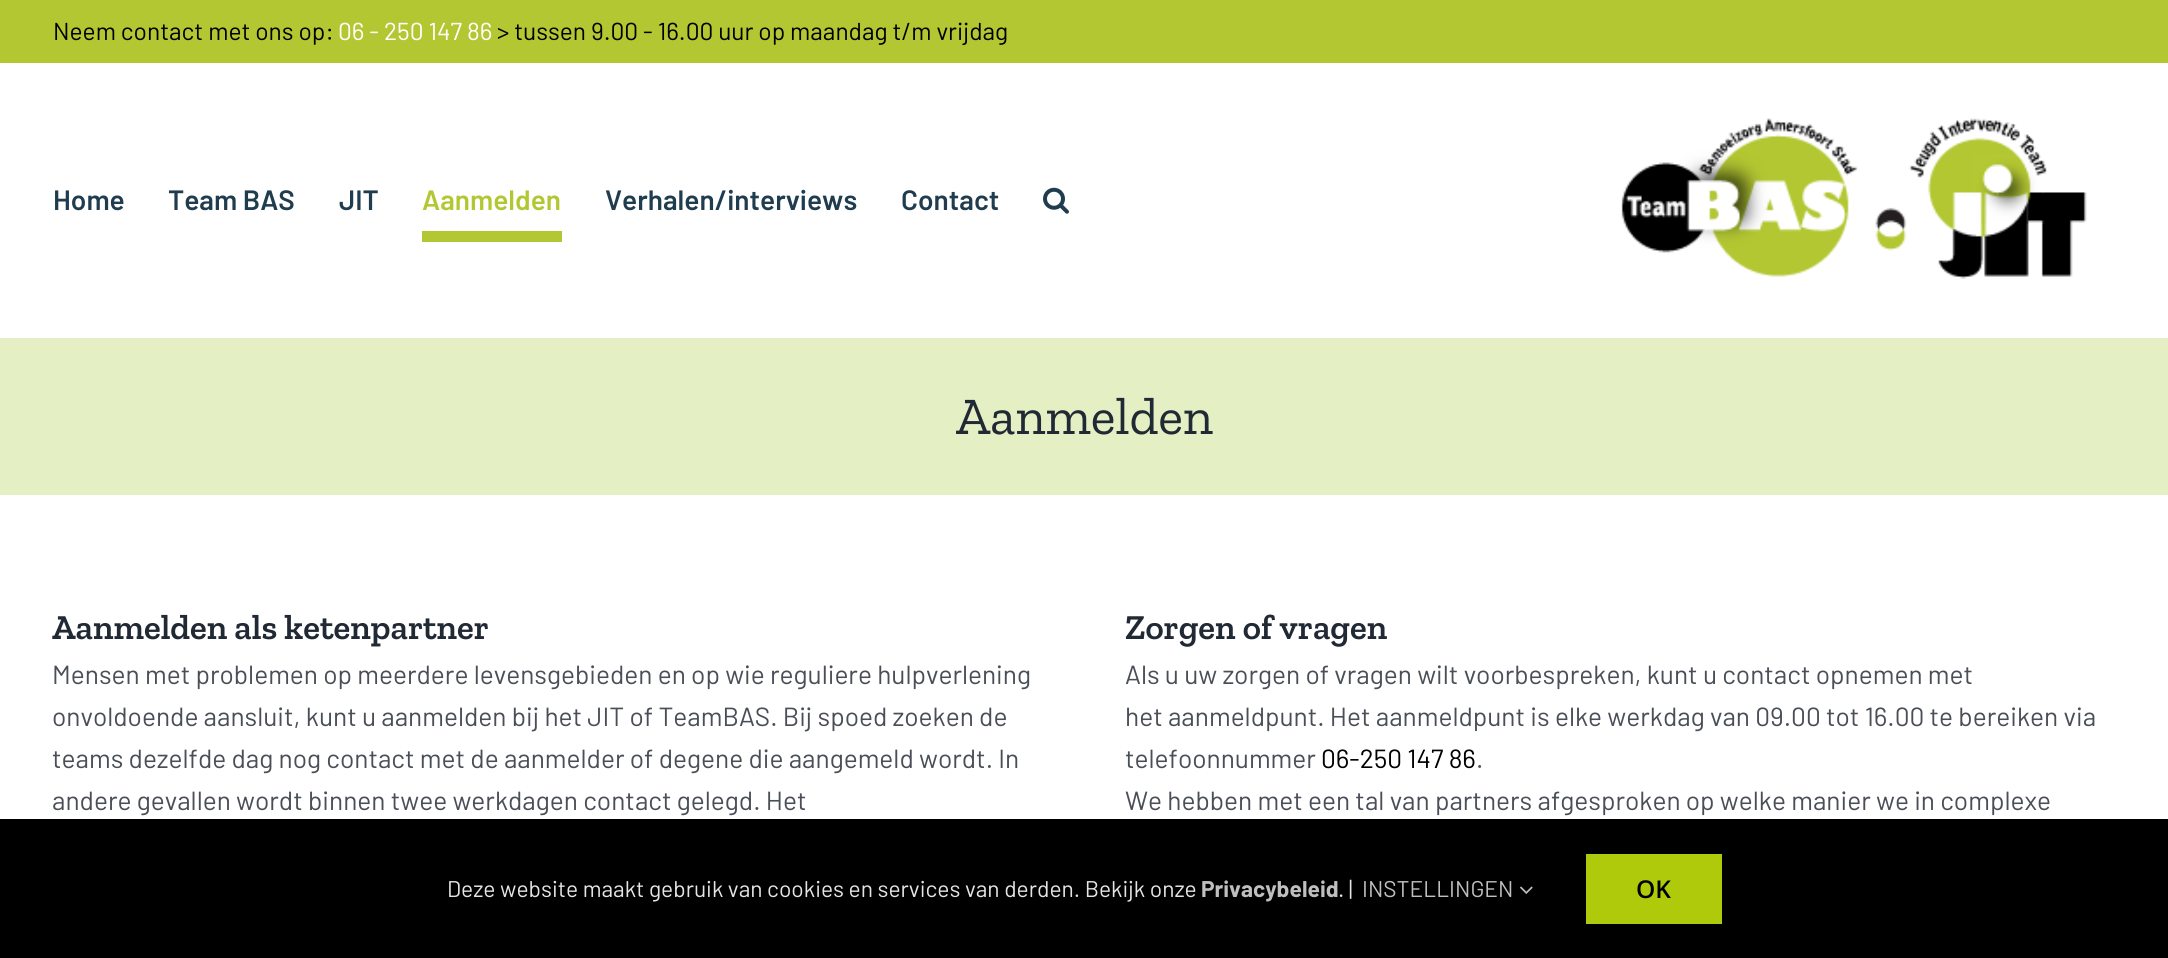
import math
import cairo

surface = cairo.ImageSurface(cairo.Format.RGB24, 2168, 958)
ctx = cairo.Context(surface)
options = cairo.FontOptions()
options.set_hint_metrics(cairo.HintMetrics.OFF)
options.set_hint_style(cairo.HintStyle.NONE)
ctx.set_font_options(options)
ctx.set_miter_limit(4)


def ink(r, g, b):
    ctx.set_source_rgb(r / 255, g / 255, b / 255)


def write(x, y, s, family, size, color, bold=False, italic=False):
    ctx.select_font_face(family, cairo.FontSlant.ITALIC if italic else cairo.FontSlant.NORMAL, cairo.FontWeight.BOLD if bold else cairo.FontWeight.NORMAL)
    ctx.set_font_size(size)
    ink(*color)
    ctx.move_to(x, y)
    ctx.show_text(s)


def block(x, y, w, h, *color):
    ink(*color)
    ctx.rectangle(x, y, w, h)
    ctx.fill()


def paste(path, x, y, w, h):
    ctx.save()
    ctx.set_source_surface(cairo.ImageSurface.create_from_png(path), x, y)
    ctx.rectangle(x, y, w, h)
    ctx.fill()
    ctx.restore()


s1 = dict(family="Barlow", size=24.5, color=(0, 0, 0))
s2 = dict(family="Barlow", size=24.5, color=(255, 255, 255))
s3 = dict(family="Barlow SemiBold", size=28, color=(32, 61, 79))
s4 = dict(family="Barlow SemiBold", size=28, color=(179, 199, 50))
s5 = dict(family="Zilla Slab", size=52.5, color=(33, 41, 52))
s6 = dict(family="Zilla Slab SemiBold", size=35, color=(33, 41, 52))
s7 = dict(family="Barlow", size=26.25, color=(74, 78, 87))
s8 = dict(family="Barlow", size=26.25, color=(0, 0, 0))
s9 = dict(family="Barlow", size=22.75, color=(229, 229, 229))
s10 = dict(family="Barlow", size=22.75, color=(191, 191, 191), bold=True)
s11 = dict(family="Barlow", size=22.75, color=(191, 191, 191))
s12 = dict(family="Open Sans SemiBold", size=24.5, color=(0, 0, 0))

ink(255, 255, 255)
ctx.paint()
block(0, 0, 2168, 63, 179, 199, 50)
write(53, 40, "Neem contact met ons op:", **s1)
write(338, 40, "06 - 250 147 86", **s2)
write(497, 40, "> tussen 9.00 - 16.00 uur op maandag t/m vrijdag", **s1)
write(53, 210, "Home", **s3)
write(168, 210, "Team BAS", **s3)
write(339, 210, "JIT", **s3)
write(422, 210, "Aanmelden", **s4)
block(422, 231, 140, 11, 179, 199, 50)
write(605, 210, "Verhalen/interviews", **s3)
write(901, 210, "Contact", **s3)
paste("pic1.png", 1043, 187, 26, 27)
paste("pic2.png", 1621, 118, 466, 161)
block(0, 338, 2168, 157, 228, 240, 195)
write(956, 434, "Aanmelden", **s5)
write(52, 639, "Aanmelden als ketenpartner", **s6)
write(52, 684, "Mensen met problemen op meerdere levensgebieden en op wie reguliere hulpverlening", **s7)
write(52, 726, "onvoldoende aansluit, kunt u aanmelden bij het JIT of TeamBAS. Bij spoed zoeken de", **s7)
write(52, 768, "teams dezelfde dag nog contact met de aanmelder of degene die aangemeld wordt. In", **s7)
write(52, 810, "andere gevallen wordt binnen twee werkdagen contact gelegd. Het", **s7)
write(1125, 639, "Zorgen of vragen", **s6)
write(1125, 684, "Als u uw zorgen of vragen wilt voorbespreken, kunt u contact opnemen met", **s7)
write(1125, 726, "het aanmeldpunt. Het aanmeldpunt is elke werkdag van 09.00 tot 16.00 te bereiken via", **s7)
write(1125, 768, "telefoonnummer", **s7)
write(1321, 768, "06-250 147 86", **s8)
write(1476, 768, ".", **s7)
write(1125, 810, "We hebben met een tal van partners afgesproken op welke manier we in complexe", **s7)
block(0, 819, 2168, 139, 0, 0, 0)
write(447, 897, "Deze website maakt gebruik van cookies en services van derden. Bekijk onze", **s9)
write(1201, 897, "Privacybeleid", **s10)
write(1338, 897, ". |", **s9)
write(1362, 897, "INSTELLINGEN", **s11)
paste("pic3.png", 1520, 886, 13, 8)
block(1586, 854, 136, 70, 175, 202, 11)
write(1636, 898, "OK", **s12)
surface.write_to_png("screenshot.png")
